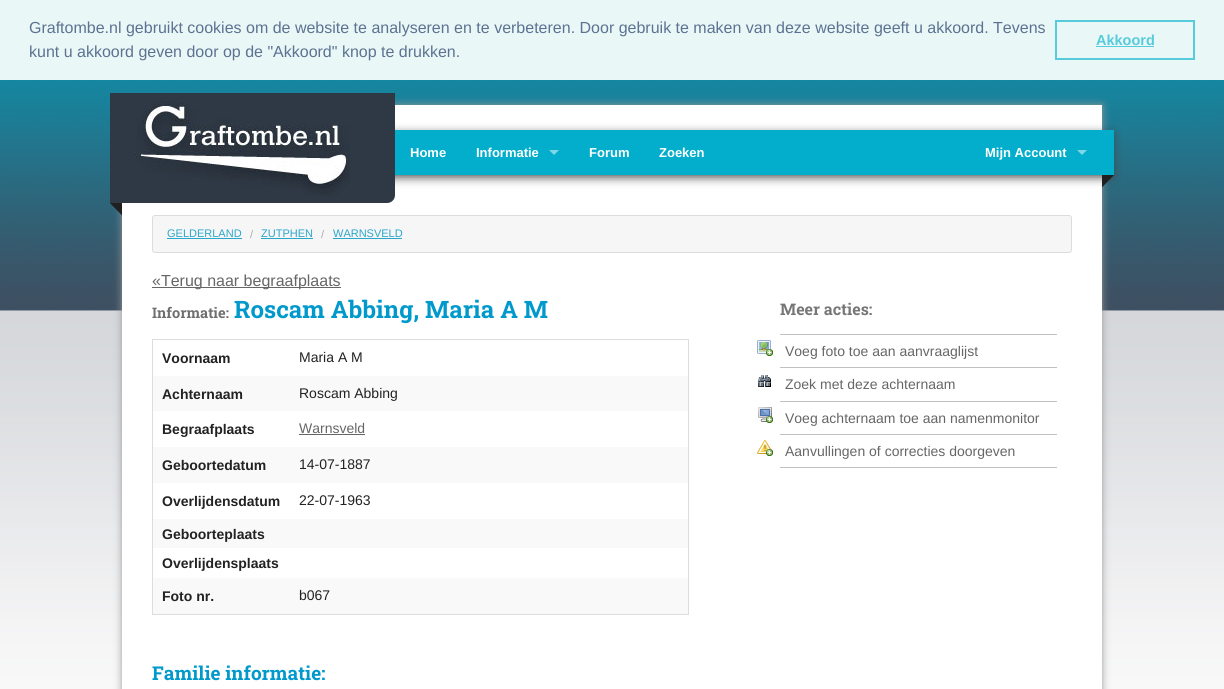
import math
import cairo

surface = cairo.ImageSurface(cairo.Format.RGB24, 1224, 689)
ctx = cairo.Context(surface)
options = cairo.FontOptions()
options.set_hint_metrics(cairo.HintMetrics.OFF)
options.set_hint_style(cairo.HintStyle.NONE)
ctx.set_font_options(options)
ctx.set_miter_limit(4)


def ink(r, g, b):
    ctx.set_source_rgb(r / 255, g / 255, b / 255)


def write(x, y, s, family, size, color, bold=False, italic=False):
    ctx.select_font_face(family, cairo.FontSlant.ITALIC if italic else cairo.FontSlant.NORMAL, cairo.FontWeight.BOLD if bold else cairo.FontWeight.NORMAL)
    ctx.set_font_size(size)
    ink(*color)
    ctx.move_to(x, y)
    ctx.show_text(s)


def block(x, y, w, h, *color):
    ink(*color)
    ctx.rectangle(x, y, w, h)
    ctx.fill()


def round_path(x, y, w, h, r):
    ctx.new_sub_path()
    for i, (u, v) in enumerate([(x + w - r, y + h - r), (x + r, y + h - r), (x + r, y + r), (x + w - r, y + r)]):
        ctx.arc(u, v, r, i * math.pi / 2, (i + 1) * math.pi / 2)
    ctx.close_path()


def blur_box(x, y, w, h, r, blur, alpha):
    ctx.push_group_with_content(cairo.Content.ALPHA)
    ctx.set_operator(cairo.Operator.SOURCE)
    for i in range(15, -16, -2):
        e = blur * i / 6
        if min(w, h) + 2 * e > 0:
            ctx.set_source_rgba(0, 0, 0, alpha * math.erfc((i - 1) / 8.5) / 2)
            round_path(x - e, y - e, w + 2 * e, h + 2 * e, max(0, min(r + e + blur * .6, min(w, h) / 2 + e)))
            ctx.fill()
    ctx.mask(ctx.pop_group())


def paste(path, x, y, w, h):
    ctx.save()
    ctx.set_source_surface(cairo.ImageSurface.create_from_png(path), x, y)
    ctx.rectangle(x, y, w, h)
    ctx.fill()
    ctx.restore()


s1 = dict(family="Liberation Sans", size=16, color=(92, 114, 145))
s2 = dict(family="Liberation Sans", size=14.5, color=(86, 203, 219), bold=True)
s3 = dict(family="Liberation Sans", size=13, color=(255, 255, 255), bold=True)
s4 = dict(family="Liberation Sans", size=11, color=(43, 166, 203))
s5 = dict(family="Liberation Sans", size=11, color=(170, 170, 170))
s6 = dict(family="Liberation Sans", size=16, color=(102, 102, 102))
s7 = dict(family="Roboto Slab", size=14.5, color=(111, 111, 111), bold=True)
s8 = dict(family="Roboto Slab", size=24, color=(0, 153, 204), bold=True)
s9 = dict(family="Liberation Sans", size=14, color=(34, 34, 34), bold=True)
s10 = dict(family="Liberation Sans", size=14, color=(34, 34, 34))
s11 = dict(family="Liberation Sans", size=14, color=(102, 102, 102))
s12 = dict(family="Roboto Slab", size=16, color=(119, 119, 119), bold=True)
s13 = dict(family="Roboto Slab", size=19, color=(0, 153, 204), bold=True)

ink(255, 255, 255)
ctx.paint()
paste("pic1.png", 0, 80, 1224, 609)
block(0, 0, 1224, 80, 234, 247, 247)
write(29, 33, "Graftombe.nl gebruikt cookies om de website te analyseren en te verbeteren. Door gebruik te maken van deze website geeft u akkoord. Tevens", **s1)
write(29, 57, "kunt u akkoord geven door op de \"Akkoord\" knop te drukken.", **s1)
ctx.rectangle(1056, 21, 138, 38)
ink(86, 203, 219)
ctx.stroke()
write(1096, 45, "Akkoord", **s2)
block(1096, 46, 58, 1, 86, 203, 219)
ink(153, 153, 153)
blur_box(122, 105, 980, 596, 0, 4, 1)
block(122, 105, 980, 584, 255, 255, 255)
ink(68, 68, 68)
blur_box(123, 134, 990, 43, 0, 5, 1)
ink(47, 57, 69)
ctx.new_path()
ctx.move_to(110, 93)
ctx.line_to(395, 93)
ctx.line_to(395, 195)
ctx.curve_to(395, 199.5, 391.5, 203, 387, 203)
ctx.line_to(110, 203)
ctx.close_path()
ctx.fill()
paste("pic2.png", 135, 101, 215, 95)
paste("pic3.png", 110, 203, 12, 12)
block(395, 130, 719, 45, 2, 174, 203)
write(410, 157, "Home", **s3)
write(476, 157, "Informatie", **s3)
ink(129, 215, 229)
ctx.new_path()
ctx.move_to(549, 150)
ctx.line_to(559, 150)
ctx.line_to(554, 155)
ctx.close_path()
ctx.fill()
write(589, 157, "Forum", **s3)
write(659, 157, "Zoeken", **s3)
write(985, 157, "Mijn Account", **s3)
ink(129, 215, 229)
ctx.new_path()
ctx.move_to(1077, 150)
ctx.line_to(1087, 150)
ctx.line_to(1082, 155)
ctx.close_path()
ctx.fill()
paste("pic4.png", 1102, 175, 12, 12)
ink(246, 246, 246)
round_path(152.5, 215.5, 919, 37, 2.5)
ctx.fill_preserve()
ink(220, 220, 220)
ctx.set_line_width(1)
ctx.stroke()
write(167, 237, "GELDERLAND", **s4)
block(167, 238, 75, 1, 43, 166, 203)
write(250, 238, "/", **s5)
write(261, 237, "ZUTPHEN", **s4)
block(261, 238, 52, 1, 43, 166, 203)
write(321, 238, "/", **s5)
write(333, 237, "WARNSVELD", **s4)
block(333, 238, 69, 1, 43, 166, 203)
block(152, 287, 189, 1, 102, 102, 102)
write(152, 286, "«Terug naar begraafplaats", **s6)
write(152, 318, "Informatie:", **s7)
write(234, 318, "Roscam Abbing, Maria A M", **s8)
block(152, 339, 537, 1, 221, 221, 221)
block(688, 339, 1, 276, 221, 221, 221)
block(152, 614, 537, 1, 221, 221, 221)
block(152, 339, 1, 276, 221, 221, 221)
write(162, 363, "Voornaam", **s9)
write(299, 362, "Maria A M", **s10)
block(153, 376, 535, 35, 249, 249, 249)
write(162, 399, "Achternaam", **s9)
write(299, 398, "Roscam Abbing", **s10)
write(162, 434, "Begraafplaats", **s9)
write(299, 433, "Warnsveld", **s11)
block(299, 434, 66, 1, 102, 102, 102)
block(153, 447, 535, 36, 249, 249, 249)
write(162, 470, "Geboortedatum", **s9)
write(299, 469, "14-07-1887", **s10)
write(162, 506, "Overlijdensdatum", **s9)
write(299, 505, "22-07-1963", **s10)
block(153, 519, 535, 29, 249, 249, 249)
write(162, 539, "Geboorteplaats", **s9)
write(162, 568, "Overlijdensplaats", **s9)
block(153, 578, 535, 36, 249, 249, 249)
write(162, 601, "Foto nr.", **s9)
write(299, 600, "b067", **s10)
write(780, 315, "Meer acties:", **s12)
block(780, 334, 277, 1, 192, 192, 192)
block(780, 367, 277, 1, 192, 192, 192)
paste("pic5.png", 757, 340, 16, 16)
write(785, 356, "Voeg foto toe aan aanvraaglijst", **s11)
block(780, 401, 277, 1, 192, 192, 192)
paste("pic6.png", 758, 375, 13, 12)
write(785, 389, "Zoek met deze achternaam", **s11)
block(780, 434, 277, 1, 192, 192, 192)
paste("pic7.png", 758, 407, 15, 16)
write(785, 423, "Voeg achternaam toe aan namenmonitor", **s11)
block(780, 467, 277, 1, 192, 192, 192)
paste("pic8.png", 757, 440, 16, 16)
write(785, 456, "Aanvullingen of correcties doorgeven", **s11)
write(152, 680, "Familie informatie:", **s13)
surface.write_to_png("screenshot.png")
